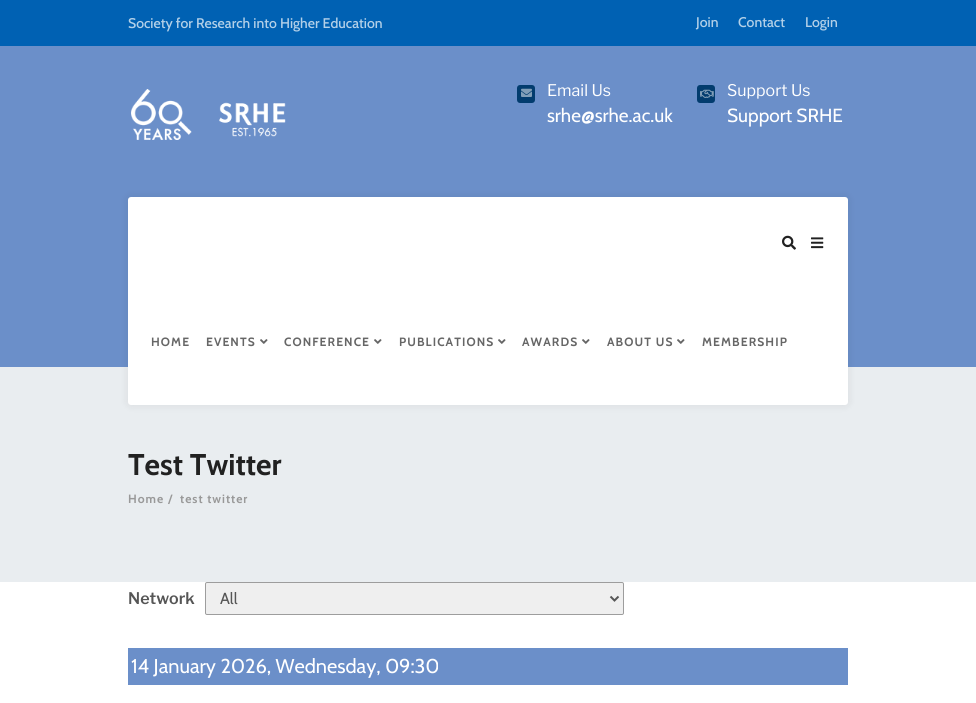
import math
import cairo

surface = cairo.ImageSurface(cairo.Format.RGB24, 976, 703)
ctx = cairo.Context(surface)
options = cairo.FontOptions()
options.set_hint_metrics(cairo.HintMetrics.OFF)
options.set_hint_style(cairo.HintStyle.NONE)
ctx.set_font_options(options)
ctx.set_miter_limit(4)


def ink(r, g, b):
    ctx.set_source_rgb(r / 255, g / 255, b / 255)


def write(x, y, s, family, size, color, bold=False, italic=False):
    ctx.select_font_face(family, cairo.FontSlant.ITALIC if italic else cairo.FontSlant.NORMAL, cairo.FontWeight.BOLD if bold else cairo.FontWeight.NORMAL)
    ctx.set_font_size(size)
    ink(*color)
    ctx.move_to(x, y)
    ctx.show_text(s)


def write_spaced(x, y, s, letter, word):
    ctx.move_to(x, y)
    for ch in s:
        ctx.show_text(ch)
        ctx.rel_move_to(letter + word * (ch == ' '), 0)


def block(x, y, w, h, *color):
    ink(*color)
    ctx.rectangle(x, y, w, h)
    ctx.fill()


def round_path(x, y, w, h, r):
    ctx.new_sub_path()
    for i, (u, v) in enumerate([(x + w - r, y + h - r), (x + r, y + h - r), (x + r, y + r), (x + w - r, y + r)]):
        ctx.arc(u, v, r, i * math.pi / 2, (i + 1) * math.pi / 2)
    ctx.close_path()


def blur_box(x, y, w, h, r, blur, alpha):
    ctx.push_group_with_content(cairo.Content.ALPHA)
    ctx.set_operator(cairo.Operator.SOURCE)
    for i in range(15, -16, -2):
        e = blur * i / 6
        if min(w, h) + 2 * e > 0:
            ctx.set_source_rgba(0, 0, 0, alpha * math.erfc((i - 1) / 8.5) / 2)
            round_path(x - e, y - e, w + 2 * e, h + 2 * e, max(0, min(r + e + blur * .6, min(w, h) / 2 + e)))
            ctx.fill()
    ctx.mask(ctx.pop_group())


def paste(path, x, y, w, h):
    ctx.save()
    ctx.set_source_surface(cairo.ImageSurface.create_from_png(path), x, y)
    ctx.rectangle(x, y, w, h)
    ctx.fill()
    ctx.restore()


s1 = dict(family="Cabin Medium", size=14, color=(179, 208, 232))
s2 = dict(family="Libre Franklin", size=16, color=(255, 255, 255))
s3 = dict(family="Cabin", size=19, color=(255, 255, 255))
s4 = dict(family="Cabin", size=30, color=(33, 33, 33), bold=True)
s5 = dict(family="Libre Franklin SemiBold", size=16, color=(86, 86, 86))
s6 = dict(family="Cabin", size=16, color=(86, 86, 86))
s7 = dict(family="Cabin", size=20, color=(255, 255, 255))

ink(255, 255, 255)
ctx.paint()
block(0, 0, 976, 46, 0, 97, 179)
write(128, 28, "Society for Research into Higher Education", **s1)
write(696, 27, "Join", **s1)
write(738, 27, "Contact", **s1)
write(805, 27, "Login", **s1)
block(0, 46, 976, 321, 107, 143, 201)
paste("pic1.png", 131, 89, 155, 51)
ink(2, 60, 110)
round_path(517, 85, 18, 18, 3)
ctx.fill()
paste("pic2.png", 521, 88, 11, 9)
write(547, 96, "Email Us", **s2)
write(547, 122, "srhe@srhe.ac.uk", **s3)
ink(2, 60, 110)
round_path(697, 85, 18, 18, 3)
ctx.fill()
paste("pic3.png", 700, 89, 14, 9)
write(727, 96, "Support Us", **s2)
write(727, 122, "Support SRHE", **s3)
block(0, 367, 976, 215, 233, 237, 240)
ink(0, 0, 0)
blur_box(128, 197, 720, 208, 3, 5, 0.08)
ink(255, 255, 255)
round_path(128, 197, 720, 208, 3)
ctx.fill()
paste("pic4.png", 782, 235, 14, 15)
paste("pic5.png", 811, 237, 13, 12)
ctx.select_font_face("Cabin", cairo.FontSlant.NORMAL, cairo.FontWeight.BOLD)
ctx.set_font_size(12)
ink(102, 102, 102)
write_spaced(151, 346, "HOME", 1.1, 0)
write_spaced(206, 346, "EVENTS", 1.1, 0)
paste("pic6.png", 260, 339, 8, 5)
write_spaced(284, 346, "CONFERENCE", 1.1, 0)
paste("pic6.png", 374, 339, 8, 5)
write_spaced(399, 346, "PUBLICATIONS", 1.1, 0)
paste("pic6.png", 498, 339, 8, 5)
write_spaced(522, 346, "AWARDS", 1.1, 0)
paste("pic6.png", 582, 339, 8, 5)
write_spaced(607, 346, "ABOUT US", 1.1, 0)
paste("pic6.png", 677, 339, 8, 5)
write_spaced(702, 346, "MEMBERSHIP", 1.1, 0)
write(128, 475, "Test Twitter", **s4)
ctx.set_font_size(12)
ink(153, 153, 153)
write_spaced(128, 503, "Home", 1, 0)
write_spaced(168, 503, "/", 1, 0)
write_spaced(180, 503, "test twitter", 1, 0)
write(128, 604, "Network", **s5)
ink(239, 239, 239)
round_path(205.5, 582.5, 418, 32, 1.5)
ctx.fill_preserve()
ink(157, 157, 157)
ctx.set_line_width(1)
ctx.stroke()
ctx.new_path()
ctx.move_to(610.5, 596.5)
ctx.line_to(614.5, 600.5)
ctx.line_to(618.5, 596.5)
ink(86, 86, 86)
ctx.set_line_width(2)
ctx.stroke()
write(220, 604, "All", **s6)
block(128, 648, 720, 37, 107, 143, 201)
write(131, 673, "14 January 2026, Wednesday, 09:30", **s7)
surface.write_to_png("screenshot.png")
